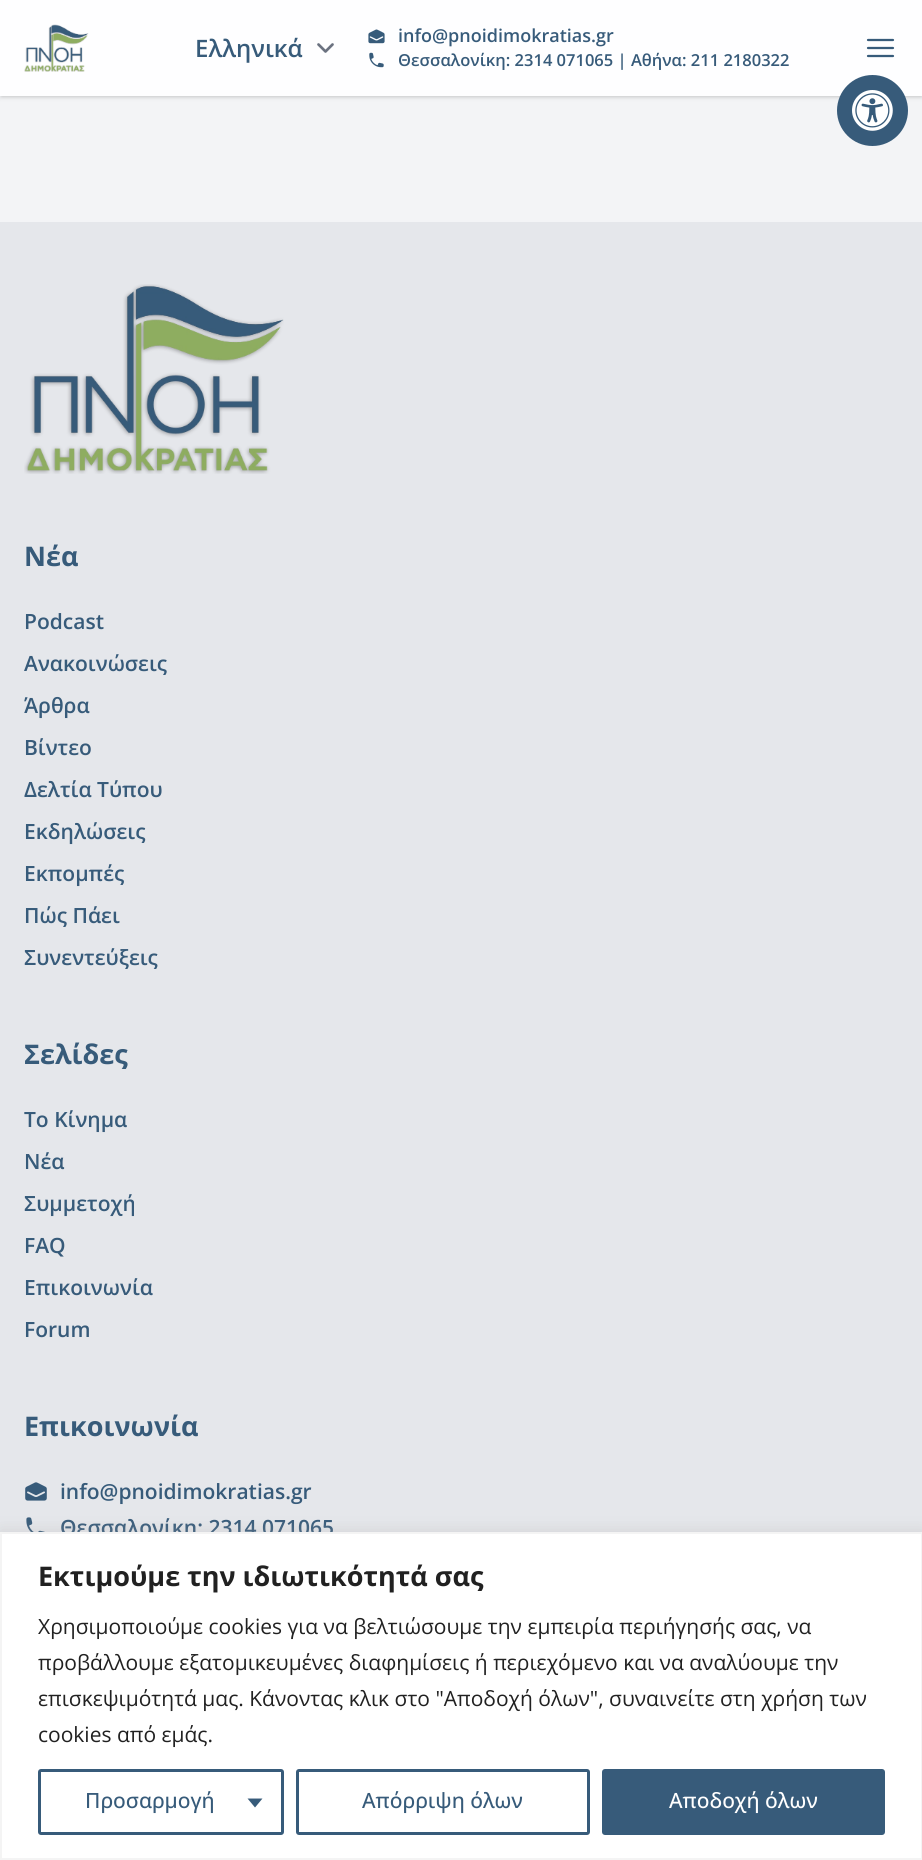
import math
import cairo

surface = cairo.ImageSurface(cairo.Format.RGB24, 922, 1860)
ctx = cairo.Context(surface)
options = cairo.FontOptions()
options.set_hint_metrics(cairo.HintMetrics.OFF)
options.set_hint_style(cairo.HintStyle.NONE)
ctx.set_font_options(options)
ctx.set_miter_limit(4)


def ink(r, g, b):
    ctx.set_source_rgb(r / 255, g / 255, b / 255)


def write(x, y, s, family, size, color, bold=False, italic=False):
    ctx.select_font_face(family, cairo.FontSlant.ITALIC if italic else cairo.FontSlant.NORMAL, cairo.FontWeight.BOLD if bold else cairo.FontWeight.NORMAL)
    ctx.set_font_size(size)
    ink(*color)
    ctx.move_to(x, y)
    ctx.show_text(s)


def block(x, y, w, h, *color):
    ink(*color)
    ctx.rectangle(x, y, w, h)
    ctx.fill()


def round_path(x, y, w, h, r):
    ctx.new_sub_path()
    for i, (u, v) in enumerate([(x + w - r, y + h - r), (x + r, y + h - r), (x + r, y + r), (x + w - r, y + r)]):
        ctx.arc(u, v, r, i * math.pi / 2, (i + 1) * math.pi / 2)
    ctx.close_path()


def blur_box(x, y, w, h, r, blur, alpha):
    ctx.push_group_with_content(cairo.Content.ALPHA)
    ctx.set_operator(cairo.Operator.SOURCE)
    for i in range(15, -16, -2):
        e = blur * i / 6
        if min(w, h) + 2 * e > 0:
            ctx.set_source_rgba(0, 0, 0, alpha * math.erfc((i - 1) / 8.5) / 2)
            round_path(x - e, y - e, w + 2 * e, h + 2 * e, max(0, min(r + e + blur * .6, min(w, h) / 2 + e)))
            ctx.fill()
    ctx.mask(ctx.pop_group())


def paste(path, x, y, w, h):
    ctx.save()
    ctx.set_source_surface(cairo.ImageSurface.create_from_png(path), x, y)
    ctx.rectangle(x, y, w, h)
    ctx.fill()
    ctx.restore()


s1 = dict(family="Open Sans SemiBold", size=24, color=(55, 91, 122))
s2 = dict(family="Open Sans SemiBold", size=18, color=(55, 91, 122))
s3 = dict(family="Open Sans SemiBold", size=16.5, color=(55, 91, 122))
s4 = dict(family="Open Sans", size=27, color=(55, 91, 122), bold=True)
s5 = dict(family="Open Sans SemiBold", size=21, color=(55, 91, 122))
s6 = dict(family="Open Sans", size=27, color=(33, 33, 33), bold=True)
s7 = dict(family="Open Sans", size=21, color=(33, 33, 33))
s8 = dict(family="Open Sans Medium", size=21, color=(55, 91, 122))
s9 = dict(family="Open Sans Medium", size=21, color=(255, 255, 255))

ink(243, 244, 246)
ctx.paint()
ink(0, 0, 0)
blur_box(2, 3, 919, 93, 0, 1.5, 0.1)
blur_box(0, 2, 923, 96, 0, 2, 0.1)
block(0, 0, 922, 96, 254, 254, 255)
paste("pic1.png", 24, 24, 65, 48)
ctx.new_path()
ctx.move_to(318.5, 44.5)
ctx.line_to(325.5, 51.5)
ctx.line_to(332.5, 44.5)
ink(107, 114, 128)
ctx.set_line_width(2.7)
ctx.set_line_cap(cairo.LineCap.ROUND)
ctx.set_line_join(cairo.LineJoin.ROUND)
ctx.stroke()
write(195, 57, "Ελληνικά", **s1)
paste("pic2.png", 368, 29, 17, 15)
write(398, 42, "info@pnoidimokratias.gr", **s2)
paste("pic3.png", 369, 52, 15, 16)
write(398, 66, "Θεσσαλονίκη: 2314 071065 | Αθήνα: 211 2180322", **s3)
ctx.new_path()
ctx.move_to(868, 40)
ctx.line_to(893, 40)
ctx.move_to(868, 48)
ctx.line_to(893, 48)
ctx.move_to(868, 56)
ctx.line_to(893, 56)
ctx.set_line_width(2.2)
ctx.stroke()
ctx.arc(872.5, 110.5, 35.5, 0, 2 * math.pi)
ctx.fill()
paste("pic4.png", 852, 90, 41, 41)
block(0, 222, 922, 1310, 229, 231, 235)
paste("pic5.png", 24, 284, 260, 190)
write(24, 566, "Νέα", **s4)
write(24, 629, "Podcast", **s5)
write(24, 671, "Ανακοινώσεις", **s5)
write(24, 713, "Άρθρα", **s5)
write(24, 755, "Βίντεο", **s5)
write(24, 797, "Δελτία Τύπου", **s5)
write(24, 839, "Εκδηλώσεις", **s5)
write(24, 881, "Εκπομπές", **s5)
write(24, 923, "Πώς Πάει", **s5)
write(24, 965, "Συνεντεύξεις", **s5)
write(24, 1064, "Σελίδες", **s4)
write(24, 1127, "Το Κίνημα", **s5)
write(24, 1169, "Νέα", **s5)
write(24, 1211, "Συμμετοχή", **s5)
write(24, 1253, "FAQ", **s5)
write(24, 1295, "Επικοινωνία", **s5)
write(24, 1337, "Forum", **s5)
write(24, 1436, "Επικοινωνία", **s4)
paste("pic6.png", 25, 1482, 22, 19)
write(60, 1499, "info@pnoidimokratias.gr", **s5)
paste("pic7.png", 26, 1517, 19, 15)
write(60, 1535, "Θεσσαλονίκη: 2314 071065", **s5)
ink(172, 171, 171)
blur_box(0, 1530, 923, 329, 0, 7.5, 0.3)
ink(255, 255, 255)
ctx.rectangle(1, 1533, 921, 326)
ctx.fill_preserve()
ink(244, 244, 244)
ctx.set_line_width(2)
ctx.set_line_cap(cairo.LineCap.BUTT)
ctx.set_line_join(cairo.LineJoin.MITER)
ctx.stroke()
write(38, 1586, "Εκτιμούμε την ιδιωτικότητά σας", **s6)
write(38, 1634, "Χρησιμοποιούμε cookies για να βελτιώσουμε την εμπειρία περιήγησής σας, να", **s7)
write(38, 1670, "προβάλλουμε εξατομικευμένες διαφημίσεις ή περιεχόμενο και να αναλύουμε την", **s7)
write(38, 1706, "επισκεψιμότητά μας. Κάνοντας κλικ στο \"Αποδοχή όλων\", συναινείτε στη χρήση των", **s7)
write(38, 1742, "cookies από εμάς.", **s7)
round_path(39.5, 1770.5, 243, 63, 1.5)
ink(55, 91, 122)
ctx.set_line_width(3)
ctx.stroke()
write(85, 1808, "Προσαρμογή", **s8)
ctx.new_path()
ctx.move_to(247.5, 1798.5)
ctx.line_to(262.5, 1798.5)
ctx.line_to(255, 1807.5)
ctx.close_path()
ctx.fill()
round_path(297.5, 1770.5, 291, 63, 1.5)
ctx.stroke()
write(362, 1808, "Απόρριψη όλων", **s8)
round_path(603.5, 1770.5, 280, 63, 1.5)
ctx.fill_preserve()
ctx.stroke()
write(669, 1808, "Αποδοχή όλων", **s9)
surface.write_to_png("screenshot.png")
